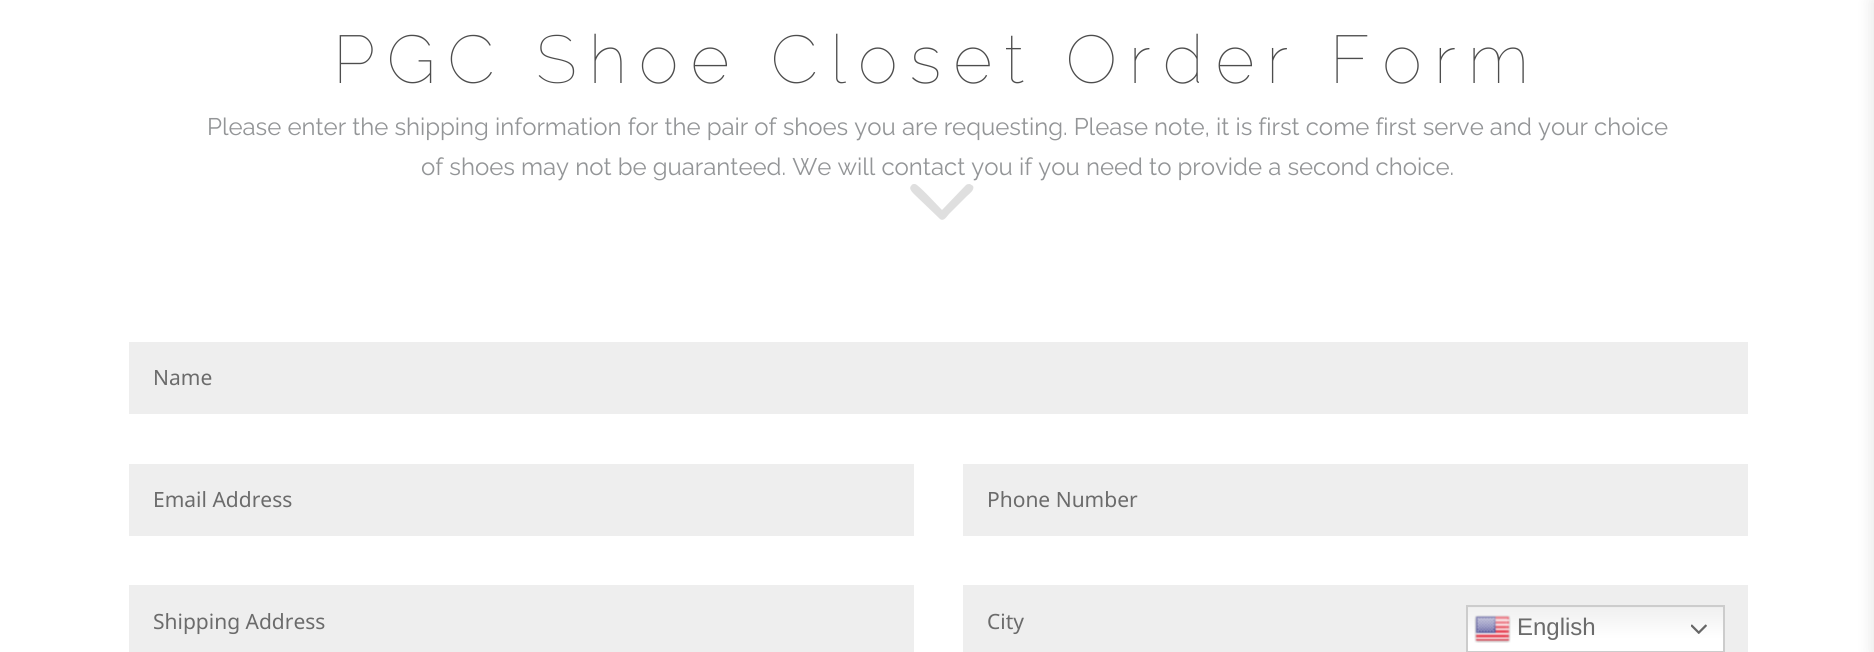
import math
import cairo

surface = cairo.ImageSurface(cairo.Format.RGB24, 1874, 652)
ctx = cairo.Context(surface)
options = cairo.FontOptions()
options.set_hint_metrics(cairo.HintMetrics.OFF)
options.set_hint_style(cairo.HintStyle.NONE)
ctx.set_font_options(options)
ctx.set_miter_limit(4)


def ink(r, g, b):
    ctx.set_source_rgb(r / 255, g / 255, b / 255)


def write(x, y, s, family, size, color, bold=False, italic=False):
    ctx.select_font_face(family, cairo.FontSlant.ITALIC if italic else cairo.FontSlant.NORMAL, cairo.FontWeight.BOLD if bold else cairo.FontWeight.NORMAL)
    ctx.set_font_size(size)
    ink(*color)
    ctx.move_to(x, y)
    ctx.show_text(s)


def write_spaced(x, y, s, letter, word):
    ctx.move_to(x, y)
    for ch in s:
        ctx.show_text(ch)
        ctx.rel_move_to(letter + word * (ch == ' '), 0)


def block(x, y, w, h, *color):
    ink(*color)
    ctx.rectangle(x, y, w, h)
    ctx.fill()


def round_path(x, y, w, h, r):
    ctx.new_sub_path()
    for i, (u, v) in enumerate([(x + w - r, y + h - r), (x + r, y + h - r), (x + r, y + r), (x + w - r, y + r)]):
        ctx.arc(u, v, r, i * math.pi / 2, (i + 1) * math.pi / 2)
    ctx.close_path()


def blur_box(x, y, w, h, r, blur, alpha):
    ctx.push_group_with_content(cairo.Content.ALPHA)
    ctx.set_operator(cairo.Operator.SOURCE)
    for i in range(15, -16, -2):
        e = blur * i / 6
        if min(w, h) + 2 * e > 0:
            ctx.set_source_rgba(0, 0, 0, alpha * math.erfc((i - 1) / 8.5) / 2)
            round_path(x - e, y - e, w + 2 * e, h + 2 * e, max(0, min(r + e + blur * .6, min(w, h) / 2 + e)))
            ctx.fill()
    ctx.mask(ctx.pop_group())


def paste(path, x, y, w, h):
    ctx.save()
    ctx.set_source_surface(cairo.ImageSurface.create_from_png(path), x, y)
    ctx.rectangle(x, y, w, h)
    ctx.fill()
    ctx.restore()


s1 = dict(family="Raleway", size=24, color=(147, 149, 151))
s2 = dict(family="Noto Sans", size=21, color=(107, 107, 107))
s3 = dict(family="Liberation Sans", size=24, color=(107, 107, 107))

ink(255, 255, 255)
ctx.paint()
ctx.select_font_face("Raleway Thin")
ctx.set_font_size(67.5)
ink(77, 77, 77)
write_spaced(333, 83, "PGC Shoe Closet Order Form", 12, 0)
write(207, 135, "Please enter the shipping information for the pair of shoes you are requesting. Please note, it is first come first serve and your choice", **s1)
write(421, 175, "of shoes may not be guaranteed. We will contact you if you need to provide a second choice.", **s1)
ink(223, 223, 223)
ctx.new_path()
ctx.move_to(966, 185)
ctx.line_to(942, 210)
ctx.curve_to(938, 206, 918, 184, 915, 184)
ctx.curve_to(913, 184, 912, 184, 911, 186)
ctx.curve_to(908, 189, 914, 194, 916, 196)
ctx.line_to(940, 219)
ctx.curve_to(944, 222, 947, 216, 949, 214)
ctx.line_to(967, 196)
ctx.curve_to(969, 194, 975, 190, 973, 186)
ctx.line_to(970, 184)
ctx.curve_to(969, 184, 967, 184, 966, 185)
ctx.close_path()
ctx.fill()
block(129, 342, 1619, 72, 238, 238, 238)
write(153, 385, "Name", **s2)
block(129, 464, 785, 72, 238, 238, 238)
write(153, 507, "Email Address", **s2)
block(963, 464, 785, 72, 238, 238, 238)
write(987, 507, "Phone Number", **s2)
block(129, 585, 785, 67, 238, 238, 238)
write(153, 629, "Shipping Address", **s2)
block(963, 585, 785, 67, 238, 238, 238)
write(987, 629, "City", **s2)
ink(0, 0, 0)
blur_box(1872, 0, 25, 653, 0, 7.5, 0.1)
gradient = cairo.LinearGradient(1595, 605, 1595, 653)
gradient.add_color_stop_rgba(0, 0.937, 0.937, 0.937, 1)
gradient.add_color_stop_rgba(0.7, 1, 1, 1, 1)
ctx.set_source(gradient)
ctx.rectangle(1468, 608, 255, 43)
ctx.fill()
ctx.rectangle(1467, 606, 257, 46)
ink(204, 204, 204)
ctx.stroke()
paste("pic1.png", 1474, 615, 37, 28)
write(1517, 635, "English", **s3)
paste("pic2.png", 1691, 624, 16, 10)
surface.write_to_png("screenshot.png")
